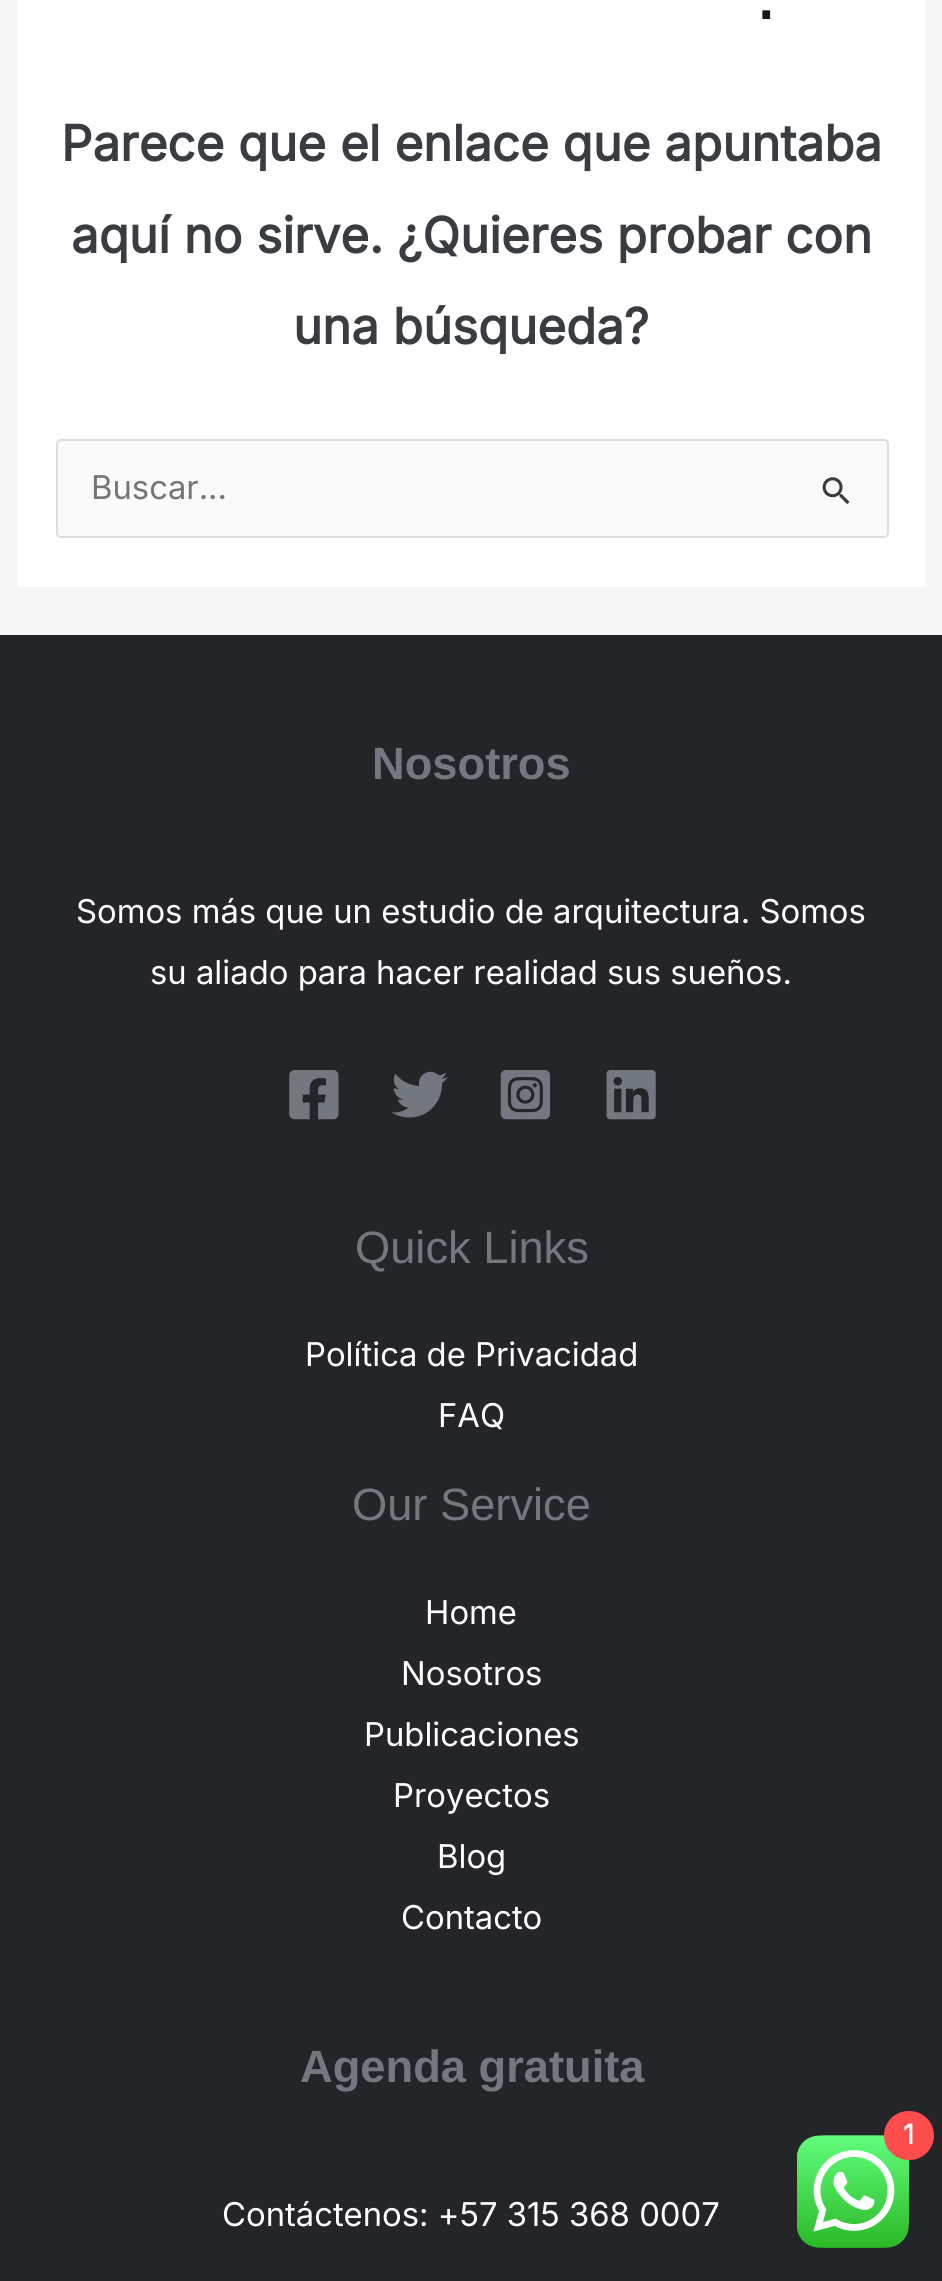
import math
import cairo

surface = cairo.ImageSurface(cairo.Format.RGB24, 942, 2281)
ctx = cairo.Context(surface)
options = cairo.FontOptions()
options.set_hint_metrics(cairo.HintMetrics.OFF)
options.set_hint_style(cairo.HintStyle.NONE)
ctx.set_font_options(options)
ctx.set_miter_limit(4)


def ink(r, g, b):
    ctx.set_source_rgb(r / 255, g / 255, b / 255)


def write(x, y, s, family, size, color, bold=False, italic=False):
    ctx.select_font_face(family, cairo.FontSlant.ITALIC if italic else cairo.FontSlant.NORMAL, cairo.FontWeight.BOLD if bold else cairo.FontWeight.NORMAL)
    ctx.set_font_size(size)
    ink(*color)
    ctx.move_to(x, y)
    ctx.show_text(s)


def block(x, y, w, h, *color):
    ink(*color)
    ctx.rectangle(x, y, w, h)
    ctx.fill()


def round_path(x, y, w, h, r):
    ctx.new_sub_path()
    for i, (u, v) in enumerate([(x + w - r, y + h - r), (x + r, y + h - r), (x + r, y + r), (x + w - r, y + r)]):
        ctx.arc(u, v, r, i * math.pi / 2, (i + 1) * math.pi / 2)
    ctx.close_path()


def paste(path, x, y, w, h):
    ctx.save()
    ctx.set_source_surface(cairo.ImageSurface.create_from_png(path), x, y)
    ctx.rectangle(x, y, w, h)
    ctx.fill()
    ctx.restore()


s1 = dict(family="Liberation Sans", size=81, color=(21, 22, 22))
s2 = dict(family="Inter", size=49.25, color=(57, 60, 64), bold=True)
s3 = dict(family="Inter", size=32.8, color=(117, 117, 117))
s4 = dict(family="Liberation Sans", size=45.25, color=(115, 120, 128), bold=True)
s5 = dict(family="Inter", size=32.8, color=(255, 255, 255))
s6 = dict(family="Liberation Sans", size=45.25, color=(115, 120, 128))
s7 = dict(family="Inter", size=27, color=(255, 255, 255), bold=True)

ink(246, 246, 246)
ctx.paint()
block(18, 0, 907, 587, 255, 255, 255)
write(755, 19, ".", **s1)
write(61, 161, "Parece que el enlace que apuntaba", **s2)
write(71, 253, "aquí no sirve. ¿Quieres probar con", **s2)
write(293, 344, "una búsqueda?", **s2)
ink(250, 250, 250)
round_path(57, 440, 831, 97, 4)
ctx.fill_preserve()
ink(221, 221, 221)
ctx.stroke()
write(91, 499, "Buscar...", **s3)
paste("pic1.png", 822, 477, 28, 27)
block(0, 635, 942, 1646, 35, 37, 41)
write(372, 779, "Nosotros", **s4)
write(76, 923, "Somos más que un estudio de arquitectura. Somos", **s5)
write(150, 984, "su aliado para hacer realidad sus sueños.", **s5)
paste("pic2.png", 289, 1070, 50, 50)
paste("pic3.png", 392, 1071, 56, 47)
paste("pic4.png", 500, 1070, 50, 50)
paste("pic5.png", 606, 1070, 50, 50)
write(355, 1263, "Quick Links", **s6)
write(305, 1366, "Política de Privacidad", **s5)
write(438, 1427, "FAQ", **s5)
write(352, 1520, "Our Service", **s6)
write(425, 1624, "Home", **s5)
write(401, 1685, "Nosotros", **s5)
write(364, 1746, "Publicaciones", **s5)
write(393, 1807, "Proyectos", **s5)
write(437, 1868, "Blog", **s5)
write(401, 1929, "Contacto", **s5)
write(300, 2082, "Agenda gratuita", **s4)
write(222, 2226, "Contáctenos: +57 315 368 0007", **s5)
paste("pic6.png", 797, 2135, 112, 113)
ink(255, 76, 76)
round_path(884, 2111, 50, 49, 24.5)
ctx.fill()
write(903, 2144, "1", **s7)
surface.write_to_png("screenshot.png")
